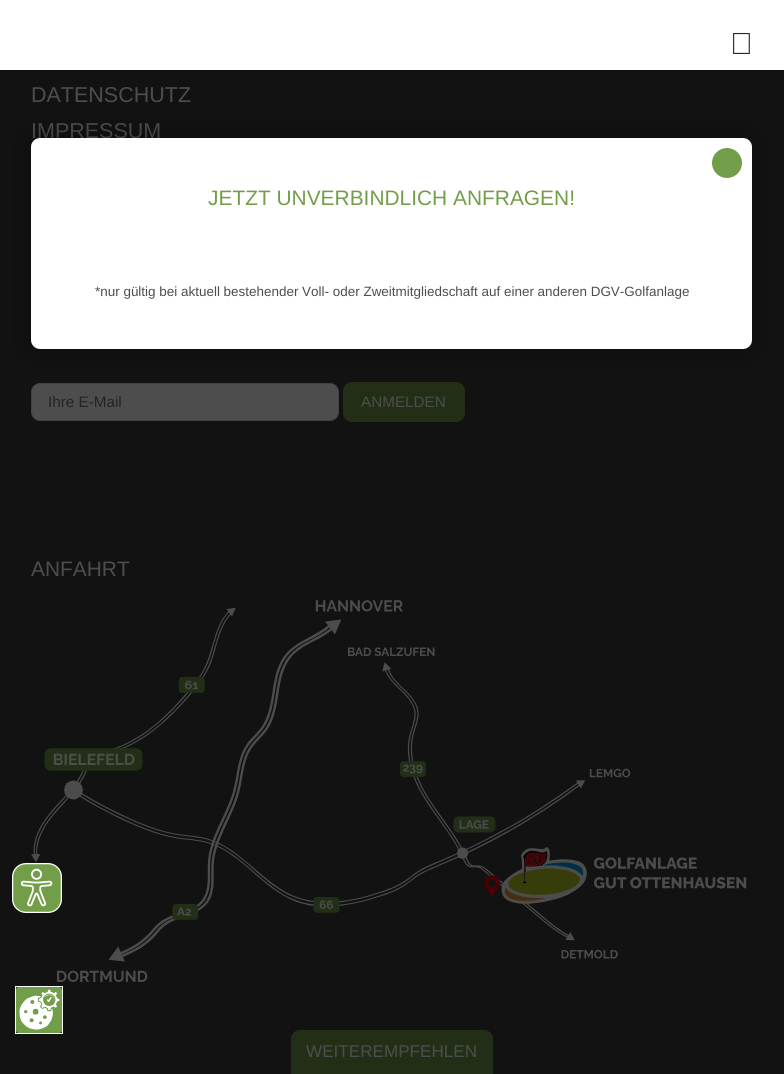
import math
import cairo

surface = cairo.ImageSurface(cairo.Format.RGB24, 784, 1074)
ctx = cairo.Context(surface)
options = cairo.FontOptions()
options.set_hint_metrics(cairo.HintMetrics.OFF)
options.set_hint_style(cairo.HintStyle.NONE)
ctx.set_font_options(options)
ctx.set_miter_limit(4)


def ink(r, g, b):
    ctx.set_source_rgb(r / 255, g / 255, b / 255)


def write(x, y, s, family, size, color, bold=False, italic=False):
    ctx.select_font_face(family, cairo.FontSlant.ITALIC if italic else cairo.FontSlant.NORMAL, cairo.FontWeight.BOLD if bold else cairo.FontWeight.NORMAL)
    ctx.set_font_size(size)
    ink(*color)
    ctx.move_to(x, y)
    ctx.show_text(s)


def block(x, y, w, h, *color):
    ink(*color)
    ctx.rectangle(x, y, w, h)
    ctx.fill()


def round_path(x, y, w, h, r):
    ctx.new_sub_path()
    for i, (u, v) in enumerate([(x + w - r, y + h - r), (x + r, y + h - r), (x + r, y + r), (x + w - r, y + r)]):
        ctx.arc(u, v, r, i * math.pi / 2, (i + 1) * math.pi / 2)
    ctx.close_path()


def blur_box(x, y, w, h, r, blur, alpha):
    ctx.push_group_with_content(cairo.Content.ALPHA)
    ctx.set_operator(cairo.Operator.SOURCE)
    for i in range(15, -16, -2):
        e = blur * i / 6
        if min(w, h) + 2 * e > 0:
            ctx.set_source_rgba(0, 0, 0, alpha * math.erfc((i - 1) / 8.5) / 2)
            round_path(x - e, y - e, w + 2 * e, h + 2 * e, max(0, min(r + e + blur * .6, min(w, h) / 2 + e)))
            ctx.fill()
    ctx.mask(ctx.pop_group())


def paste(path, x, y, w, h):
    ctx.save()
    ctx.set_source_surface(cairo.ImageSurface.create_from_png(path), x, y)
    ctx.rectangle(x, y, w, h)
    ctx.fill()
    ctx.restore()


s1 = dict(family="Liberation Sans", size=21.5, color=(77, 77, 77))
s2 = dict(family="Liberation Sans", size=15.25, color=(35, 35, 35))
s3 = dict(family="Liberation Sans", size=15.25, color=(77, 77, 77))
s4 = dict(family="Liberation Sans", size=20.9, color=(77, 77, 77))
s5 = dict(family="Liberation Sans", size=20.9, color=(114, 158, 74))
s6 = dict(family="Liberation Sans", size=13.45, color=(77, 77, 77))
s7 = dict(family="Liberation Sans", size=17.1, color=(77, 77, 77))

ink(18, 18, 18)
ctx.paint()
block(0, 0, 784, 70, 255, 255, 255)
paste("pic1.png", 733, 32, 17, 22)
write(31, 102, "DATENSCHUTZ", **s1)
write(31, 138, "IMPRESSUM", **s1)
round_path(31.5, 383.5, 307, 37, 8.5)
ctx.fill_preserve()
ink(65, 65, 65)
ctx.set_line_width(1)
ctx.stroke()
write(48, 407, "Ihre E-Mail", **s2)
ink(34, 47, 22)
round_path(343, 382, 122, 40, 9)
ctx.fill()
write(361, 407, "ANMELDEN", **s3)
write(31, 576, "ANFAHRT", **s4)
paste("pic2.png", 31, 600, 716, 382)
ink(0, 0, 0)
blur_box(23, 130, 737, 227, 17, 10, 0.2)
ink(255, 255, 255)
round_path(31, 138, 721, 211, 9)
ctx.fill()
ink(114, 158, 74)
ctx.arc(727, 163, 15, 0, 2 * math.pi)
ctx.fill()
write(208, 205, "JETZT UNVERBINDLICH ANFRAGEN!", **s5)
write(95, 296, "*nur gültig bei aktuell bestehender Voll- oder Zweitmitgliedschaft auf einer anderen DGV-Golfanlage", **s6)
paste("pic3.png", 12, 863, 50, 50)
ctx.rectangle(15.5, 986.5, 47, 47)
ink(255, 255, 255)
ctx.stroke()
paste("pic4.png", 16, 987, 46, 46)
ink(34, 47, 22)
ctx.new_path()
ctx.move_to(300, 1030)
ctx.line_to(484, 1030)
ctx.curve_to(489, 1030, 493, 1034, 493, 1039)
ctx.line_to(493, 1074)
ctx.line_to(291, 1074)
ctx.line_to(291, 1039)
ctx.curve_to(291, 1034, 295, 1030, 300, 1030)
ctx.close_path()
ctx.fill()
write(306, 1057, "WEITEREMPFEHLEN", **s7)
surface.write_to_png("screenshot.png")
